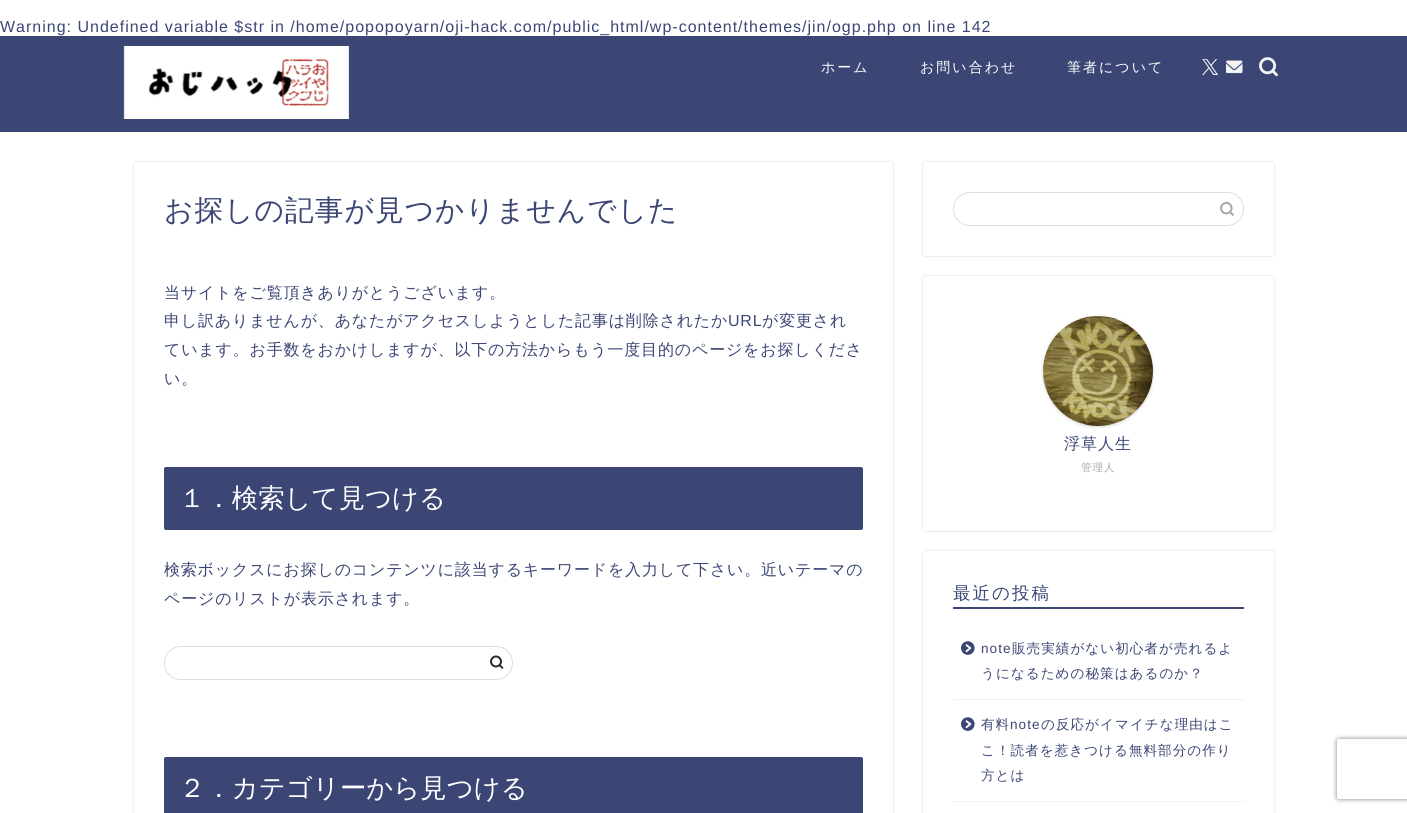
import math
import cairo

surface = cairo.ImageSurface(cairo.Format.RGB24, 1407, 813)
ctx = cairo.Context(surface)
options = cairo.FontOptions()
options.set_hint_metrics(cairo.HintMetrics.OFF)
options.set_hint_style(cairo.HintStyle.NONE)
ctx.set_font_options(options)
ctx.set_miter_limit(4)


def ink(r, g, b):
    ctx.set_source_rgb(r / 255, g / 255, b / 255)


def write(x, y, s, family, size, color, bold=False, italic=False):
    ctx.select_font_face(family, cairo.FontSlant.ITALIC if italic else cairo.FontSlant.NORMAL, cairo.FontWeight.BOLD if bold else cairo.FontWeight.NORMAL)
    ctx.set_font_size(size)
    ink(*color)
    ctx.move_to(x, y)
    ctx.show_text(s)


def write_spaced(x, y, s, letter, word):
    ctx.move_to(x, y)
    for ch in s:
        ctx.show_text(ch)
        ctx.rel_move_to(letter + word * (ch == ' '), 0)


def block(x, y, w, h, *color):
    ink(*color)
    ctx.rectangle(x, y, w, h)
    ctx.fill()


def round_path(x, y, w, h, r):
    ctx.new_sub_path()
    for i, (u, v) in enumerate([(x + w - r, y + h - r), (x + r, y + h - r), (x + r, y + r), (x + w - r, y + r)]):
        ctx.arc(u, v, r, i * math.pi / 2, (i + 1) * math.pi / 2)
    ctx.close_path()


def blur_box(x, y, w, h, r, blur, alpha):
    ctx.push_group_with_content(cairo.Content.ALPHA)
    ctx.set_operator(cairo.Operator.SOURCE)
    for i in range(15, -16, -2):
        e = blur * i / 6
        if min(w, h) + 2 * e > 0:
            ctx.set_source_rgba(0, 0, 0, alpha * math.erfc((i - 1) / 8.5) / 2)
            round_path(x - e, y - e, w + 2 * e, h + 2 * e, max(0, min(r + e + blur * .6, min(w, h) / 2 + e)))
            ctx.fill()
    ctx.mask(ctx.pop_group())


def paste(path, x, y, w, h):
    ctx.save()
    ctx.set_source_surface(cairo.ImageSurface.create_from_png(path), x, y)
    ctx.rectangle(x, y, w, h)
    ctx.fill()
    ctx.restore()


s1 = dict(family="WenQuanYi Zen Hei Medium", size=26.4, color=(255, 255, 255))

ink(255, 255, 255)
ctx.paint()
ctx.select_font_face("Liberation Sans")
ctx.set_font_size(16)
ink(59, 70, 117)
write_spaced(0, 32, "Warning: Undefined variable $str in /home/popopoyarn/oji-hack.com/public_html/wp-content/themes/jin/ogp.php on line 142", 1, 0)
block(0, 36, 1407, 96, 59, 70, 117)
paste("pic1.png", 123, 46, 226, 73)
ctx.select_font_face("WenQuanYi Zen Hei Medium")
ctx.set_font_size(14)
ink(255, 255, 255)
write_spaced(821, 72, "ホーム", 2, 0)
write_spaced(920, 72, "お問い合わせ", 2, 0)
write_spaced(1067, 72, "筆者について", 2, 0)
paste("pic2.png", 1202, 59, 16, 16)
paste("pic3.png", 1226, 60, 17, 14)
paste("pic4.png", 1259, 57, 19, 20)
ink(0, 0, 0)
blur_box(134, 162, 759, 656, 2, 1, 0.18)
ink(255, 255, 255)
round_path(134, 162, 759, 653, 2)
ctx.fill()
ctx.set_font_size(28.75)
ink(59, 70, 117)
write_spaced(164, 220, "お探しの記事が見つかりませんでした", 1, 0)
ctx.set_font_size(16)
write_spaced(164, 298, "当サイトをご覧頂きありがとうございます。", 0.8, 0)
write_spaced(164, 326, "申し訳ありませんが、あなたがアクセスしようとした記事は削除されたか", 0.8, 0)
ctx.select_font_face("Liberation Sans")
write_spaced(728, 326, "URL", 0.8, 0)
ctx.select_font_face("WenQuanYi Zen Hei Medium")
write_spaced(762, 326, "が変更され", 0.8, 0)
write_spaced(164, 355, "ています。お手数をおかけしますが、以下の方法からもう一度目的のページをお探しくださ", 0.8, 0)
write_spaced(164, 384, "い。", 0.8, 0)
round_path(164, 467, 699, 63, 2)
ctx.fill()
write(179, 507, "１．検索して見つける", **s1)
ctx.set_font_size(16)
ink(59, 70, 117)
write_spaced(164, 575, "検索ボックスにお探しのコンテンツに該当するキーワードを入力して下さい。近いテーマの", 0.8, 0)
write_spaced(164, 604, "ページのリストが表示されます。", 0.8, 0)
round_path(164.5, 646.5, 348, 33, 16.5)
ink(221, 221, 221)
ctx.set_line_width(1)
ctx.stroke()
paste("pic5.png", 490, 655, 14, 14)
ink(59, 70, 117)
round_path(164, 757, 699, 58, 2)
ctx.fill()
write(179, 797, "２．カテゴリーから見つける", **s1)
ink(0, 0, 0)
blur_box(923, 162, 351, 94, 2, 1, 0.18)
ink(255, 255, 255)
round_path(923, 162, 351, 94, 2)
ctx.fill()
round_path(953.5, 192.5, 290, 33, 16.5)
ink(221, 221, 221)
ctx.stroke()
paste("pic6.png", 1220, 201, 14, 15)
ink(0, 0, 0)
blur_box(923, 276, 351, 255, 2, 1, 0.18)
ink(255, 255, 255)
round_path(923, 276, 351, 255, 2)
ctx.fill()
ink(0, 0, 0)
blur_box(1043, 317, 110, 110, 55, 1.5, 0.18)
ink(255, 255, 255)
ctx.arc(1098, 371, 55, 0, 2 * math.pi)
ctx.fill()
paste("pic7.png", 1043, 316, 110, 110)
ctx.set_font_size(16)
ink(59, 70, 117)
write_spaced(1064, 449, "浮草人生", 1, 0)
ctx.set_font_size(10.5)
ink(166, 166, 166)
write_spaced(1081, 471, "管理人", 1, 0)
ink(0, 0, 0)
blur_box(923, 551, 351, 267, 2, 1, 0.18)
ink(255, 255, 255)
round_path(923, 551, 351, 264, 2)
ctx.fill()
block(953, 607, 291, 2, 59, 70, 117)
ctx.set_font_size(17.5)
write_spaced(953, 599, "最近の投稿", 2, 0)
block(953, 699, 291, 1, 242, 242, 242)
paste("pic8.png", 961, 641, 14, 14)
ctx.select_font_face("Liberation Sans")
ctx.set_font_size(13.6)
ink(59, 70, 117)
write_spaced(981, 653, "note", 1, 0)
ctx.select_font_face("WenQuanYi Zen Hei Medium")
write_spaced(1012, 653, "販売実績がない初心者が売れるよ", 1, 0)
write_spaced(981, 678, "うになるための秘策はあるのか？", 1, 0)
block(953, 801, 291, 1, 242, 242, 242)
paste("pic8.png", 961, 717, 14, 14)
ink(59, 70, 117)
write_spaced(981, 729, "有料", 1, 0)
ctx.select_font_face("Liberation Sans")
write_spaced(1010, 729, "note", 1, 0)
ctx.select_font_face("WenQuanYi Zen Hei Medium")
write_spaced(1041, 729, "の反応がイマイチな理由はこ", 1, 0)
write_spaced(981, 755, "こ！読者を惹きつける無料部分の作り", 1, 0)
write_spaced(981, 780, "方とは", 1, 0)
ctx.save()
ctx.set_fill_rule(cairo.FillRule.EVEN_ODD)
ctx.new_path()
ctx.move_to(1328, 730)
ctx.line_to(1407, 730)
ctx.line_to(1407, 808)
ctx.line_to(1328, 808)
ctx.close_path()
ctx.move_to(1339, 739)
ctx.line_to(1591, 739)
ctx.curve_to(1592, 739, 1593, 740, 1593, 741)
ctx.line_to(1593, 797)
ctx.curve_to(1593, 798, 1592, 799, 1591, 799)
ctx.line_to(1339, 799)
ctx.curve_to(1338, 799, 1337, 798, 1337, 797)
ctx.line_to(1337, 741)
ctx.curve_to(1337, 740, 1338, 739, 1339, 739)
ctx.close_path()
ctx.clip()
ink(128, 128, 128)
blur_box(1337, 739, 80, 60, 2, 2.5, 1)
ctx.restore()
surface.write_to_png("screenshot.png")
